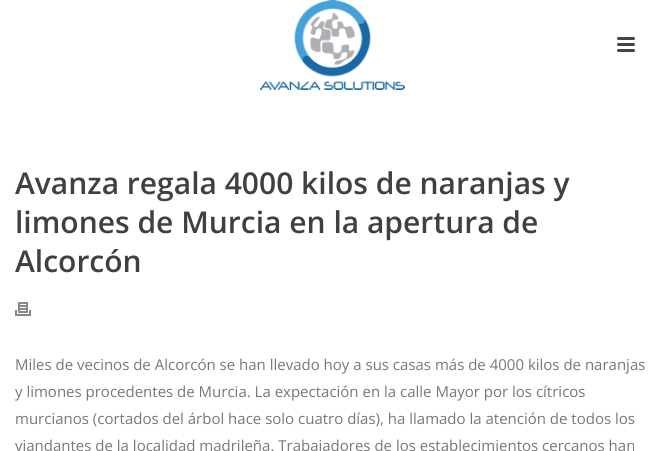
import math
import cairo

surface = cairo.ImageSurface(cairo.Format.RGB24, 665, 451)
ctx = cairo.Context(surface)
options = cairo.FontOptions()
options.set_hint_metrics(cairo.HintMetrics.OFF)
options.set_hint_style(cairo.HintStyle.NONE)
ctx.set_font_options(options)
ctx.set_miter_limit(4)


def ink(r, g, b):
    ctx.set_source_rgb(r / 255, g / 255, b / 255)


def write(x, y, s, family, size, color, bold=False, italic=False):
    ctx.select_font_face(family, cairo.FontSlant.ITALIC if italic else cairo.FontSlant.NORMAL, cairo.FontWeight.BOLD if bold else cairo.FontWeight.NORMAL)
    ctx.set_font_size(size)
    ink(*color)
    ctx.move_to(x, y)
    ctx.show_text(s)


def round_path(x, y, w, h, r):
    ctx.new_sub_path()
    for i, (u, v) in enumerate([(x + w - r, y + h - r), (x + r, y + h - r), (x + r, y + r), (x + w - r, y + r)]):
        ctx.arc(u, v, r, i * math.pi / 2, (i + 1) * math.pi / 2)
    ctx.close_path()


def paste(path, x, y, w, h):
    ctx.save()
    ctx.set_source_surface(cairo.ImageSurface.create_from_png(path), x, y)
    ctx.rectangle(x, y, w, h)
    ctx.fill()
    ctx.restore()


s1 = dict(family="Open Sans SemiBold", size=30, color=(64, 64, 64))
s2 = dict(family="Open Sans", size=15, color=(119, 119, 119))

ink(255, 255, 255)
ctx.paint()
paste("pic1.png", 260, 0, 145, 90)
ink(68, 68, 68)
round_path(617, 37, 18, 3, 1.5)
ctx.fill()
round_path(617, 43, 18, 3, 1.5)
ctx.fill()
round_path(617, 49, 18, 3, 1.5)
ctx.fill()
write(15, 194, "Avanza regala 4000 kilos de naranjas y", **s1)
write(15, 233, "limones de Murcia en la apertura de", **s1)
write(15, 272, "Alcorcón", **s1)
paste("pic2.png", 15, 302, 16, 14)
write(15, 370, "Miles de vecinos de Alcorcón se han llevado hoy a sus casas más de 4000 kilos de naranjas", **s2)
write(15, 397, "y limones procedentes de Murcia. La expectación en la calle Mayor por los cítricos", **s2)
write(15, 424, "murcianos (cortados del árbol hace solo cuatro días), ha llamado la atención de todos los", **s2)
write(15, 451, "viandantes de la localidad madrileña. Trabajadores de los establecimientos cercanos han", **s2)
surface.write_to_png("screenshot.png")
